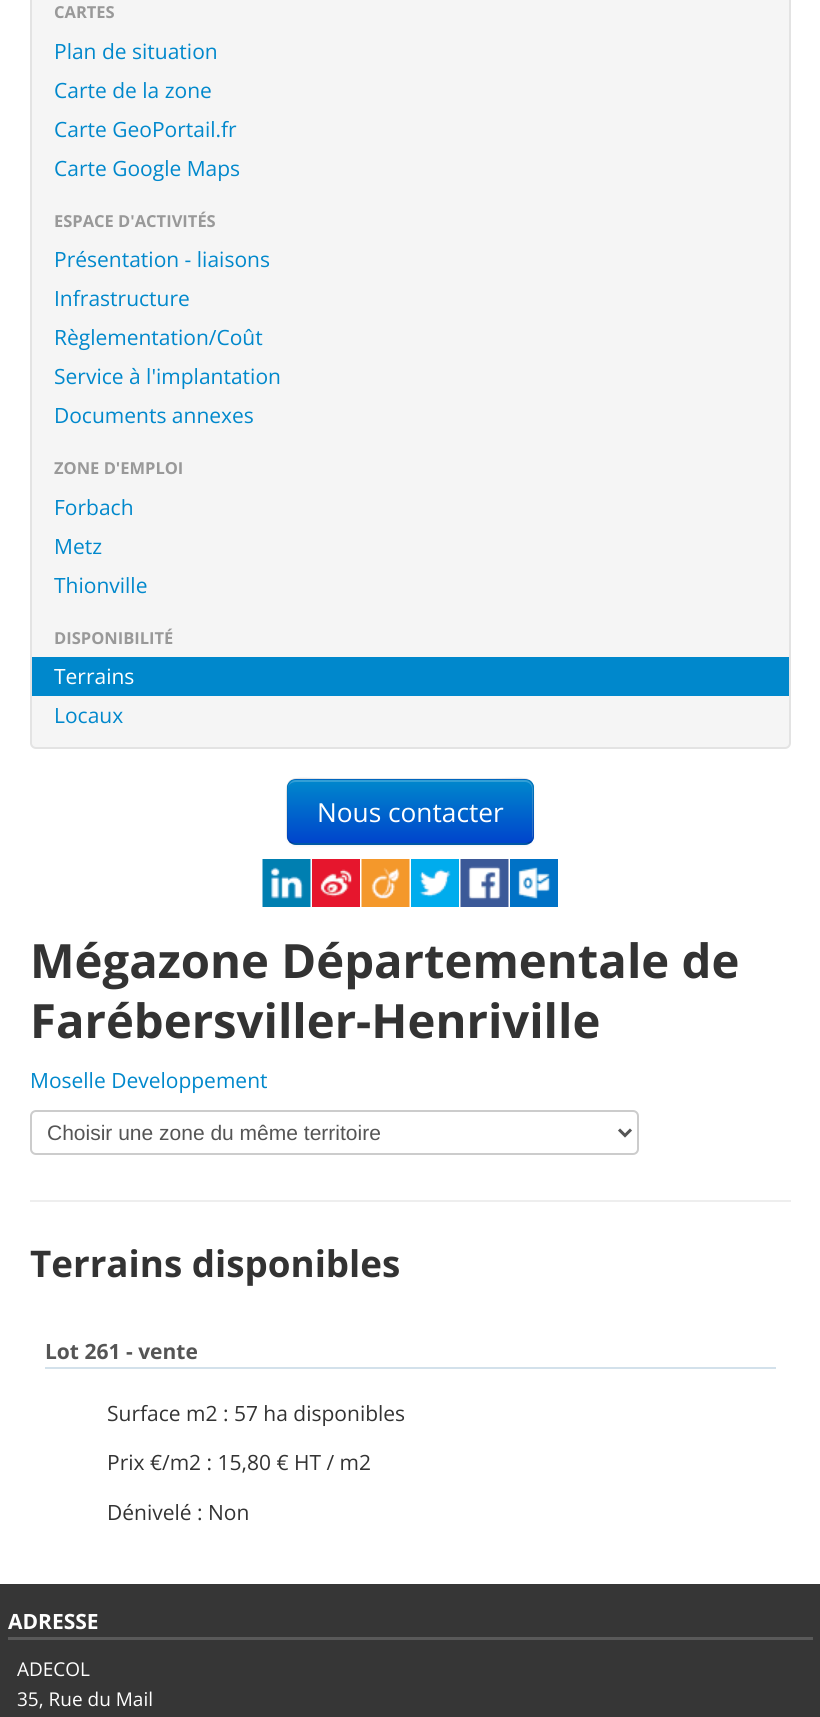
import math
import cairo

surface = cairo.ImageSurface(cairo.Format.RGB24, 820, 1717)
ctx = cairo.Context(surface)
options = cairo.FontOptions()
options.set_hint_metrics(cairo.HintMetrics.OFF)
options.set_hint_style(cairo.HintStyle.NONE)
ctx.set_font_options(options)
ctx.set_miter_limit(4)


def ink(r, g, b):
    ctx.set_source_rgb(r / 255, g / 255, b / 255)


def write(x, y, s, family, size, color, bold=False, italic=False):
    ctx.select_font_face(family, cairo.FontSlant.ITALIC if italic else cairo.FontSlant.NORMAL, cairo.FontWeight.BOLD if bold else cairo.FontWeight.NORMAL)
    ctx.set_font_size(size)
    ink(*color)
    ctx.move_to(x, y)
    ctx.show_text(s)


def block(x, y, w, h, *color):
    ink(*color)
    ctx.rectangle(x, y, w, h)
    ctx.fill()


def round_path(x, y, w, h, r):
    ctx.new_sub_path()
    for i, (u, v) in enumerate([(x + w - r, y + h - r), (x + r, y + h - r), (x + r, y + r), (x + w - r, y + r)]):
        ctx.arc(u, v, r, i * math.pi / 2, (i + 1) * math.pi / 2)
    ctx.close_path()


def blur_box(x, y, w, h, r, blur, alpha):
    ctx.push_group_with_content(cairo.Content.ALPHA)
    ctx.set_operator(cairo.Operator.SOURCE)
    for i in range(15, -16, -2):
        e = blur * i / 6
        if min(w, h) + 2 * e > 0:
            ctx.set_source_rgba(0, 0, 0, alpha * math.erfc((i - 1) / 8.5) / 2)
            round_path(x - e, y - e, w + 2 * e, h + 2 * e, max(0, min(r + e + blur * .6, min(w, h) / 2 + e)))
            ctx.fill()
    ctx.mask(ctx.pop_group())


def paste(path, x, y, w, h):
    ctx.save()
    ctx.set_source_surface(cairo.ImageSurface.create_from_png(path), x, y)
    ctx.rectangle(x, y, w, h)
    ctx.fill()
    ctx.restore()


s1 = dict(family="Open Sans", size=16.5, color=(153, 153, 153), bold=True)
s2 = dict(family="Open Sans", size=21, color=(0, 136, 204))
s3 = dict(family="Open Sans", size=21, color=(255, 255, 255))
s4 = dict(family="Open Sans", size=26.25, color=(255, 255, 255))
s5 = dict(family="Open Sans", size=47.25, color=(51, 51, 51), bold=True)
s6 = dict(family="Liberation Sans", size=21, color=(85, 85, 85))
s7 = dict(family="Open Sans", size=36.75, color=(51, 51, 51), bold=True)
s8 = dict(family="Open Sans", size=21, color=(85, 85, 85), bold=True)
s9 = dict(family="Open Sans", size=21, color=(51, 51, 51))
s10 = dict(family="Open Sans", size=21, color=(255, 255, 255), bold=True)
s11 = dict(family="Open Sans", size=19, color=(255, 255, 255))

ink(255, 255, 255)
ctx.paint()
ink(245, 245, 245)
round_path(31, -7, 759, 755, 5)
ctx.fill_preserve()
ink(227, 227, 227)
ctx.stroke()
write(54, 18, "CARTES", **s1)
write(54, 59, "Plan de situation", **s2)
write(54, 98, "Carte de la zone", **s2)
write(54, 137, "Carte GeoPortail.fr", **s2)
write(54, 176, "Carte Google Maps", **s2)
write(54, 227, "ESPACE D'ACTIVITÉS", **s1)
write(54, 267, "Présentation - liaisons", **s2)
write(54, 306, "Infrastructure", **s2)
write(54, 345, "Règlementation/Coût", **s2)
write(54, 384, "Service à l'implantation", **s2)
write(54, 423, "Documents annexes", **s2)
write(54, 474, "ZONE D'EMPLOI", **s1)
write(54, 515, "Forbach", **s2)
write(54, 554, "Metz", **s2)
write(54, 593, "Thionville", **s2)
write(54, 644, "DISPONIBILITÉ", **s1)
block(32, 657, 757, 39, 0, 136, 204)
write(54, 684, "Terrains", **s3)
write(54, 723, "Locaux", **s2)
ink(0, 0, 0)
blur_box(287, 780, 247, 66, 9, 1.5, 0.05)
ink(0, 109, 204)
round_path(287, 779, 247, 66, 9)
ctx.fill()
ctx.save()
round_path(287, 779, 247, 66, 9)
ctx.clip()
gradient = cairo.LinearGradient(410, 780, 410, 843)
gradient.add_color_stop_rgba(0, 0, 0.533, 0.8, 1)
gradient.add_color_stop_rgba(1, 0, 0.267, 0.8, 1)
ctx.set_source(gradient)
ctx.rectangle(287, 780, 247, 63)
ctx.fill()
ctx.restore()
ctx.set_source_rgba(1, 1, 1, 0.2)
ctx.new_path()
ctx.move_to(296, 782)
ctx.line_to(525, 782)
ctx.curve_to(529, 782, 532, 785, 532, 789)
ctx.line_to(532, 837)
ctx.line_to(532, 840)
ctx.curve_to(532, 838, 533, 837, 533, 835)
ctx.line_to(533, 788)
ctx.curve_to(533, 784, 529, 780, 525, 780)
ctx.line_to(296, 780)
ctx.curve_to(292, 780, 288, 784, 288, 788)
ctx.line_to(288, 789)
ctx.curve_to(288, 785, 291, 782, 296, 782)
ctx.close_path()
ctx.fill()
ctx.new_path()
ctx.move_to(531, 841.5)
ctx.curve_to(529.5, 843, 527, 844, 525, 844)
ctx.line_to(295.5, 844)
ctx.curve_to(293.5, 844, 291, 843, 289.5, 841.5)
ctx.set_source_rgba(0, 0, 0, 0.25)
ctx.set_line_width(1.5)
ctx.stroke()
ctx.new_path()
ctx.move_to(289.5, 841.5)
ctx.curve_to(286, 838, 287, 832, 287, 827.5)
ctx.line_to(287, 819.5)
ctx.curve_to(287, 770.5, 280, 779, 334, 779)
ctx.line_to(487, 779)
ctx.curve_to(540.5, 779, 533, 770.5, 533, 819.5)
ctx.line_to(533, 827.5)
ctx.curve_to(533, 832, 534.5, 838, 531, 841.5)
ctx.set_source_rgba(0, 0, 0, 0.1)
ctx.stroke()
write(317, 822, "Nous contacter", **s4)
paste("pic1.png", 262, 859, 49, 48)
paste("pic2.png", 312, 859, 48, 48)
paste("pic3.png", 361, 859, 49, 48)
paste("pic4.png", 411, 859, 48, 48)
paste("pic5.png", 460, 859, 49, 48)
paste("pic6.png", 510, 859, 48, 48)
write(30, 978, "Mégazone Départementale de", **s5)
write(30, 1038, "Farébersviller-Henriville", **s5)
write(30, 1088, "Moselle Developpement", **s2)
round_path(31, 1111, 607, 43, 5)
ink(204, 204, 204)
ctx.set_line_width(2)
ctx.stroke()
ctx.new_path()
ctx.move_to(619, 1129.5)
ctx.line_to(625, 1135.5)
ctx.line_to(631, 1129.5)
ink(85, 85, 85)
ctx.set_line_width(3)
ctx.stroke()
write(47, 1140, "Choisir une zone du même territoire", **s6)
block(30, 1200, 761, 2, 238, 238, 238)
write(30, 1277, "Terrains disponibles", **s7)
block(45, 1367, 731, 2, 211, 225, 235)
write(45, 1359, "Lot 261 - vente", **s8)
write(107, 1421, "Surface m2 : 57 ha disponibles", **s9)
write(107, 1470, "Prix €/m2 : 15,80 € HT / m2", **s9)
write(107, 1520, "Dénivelé : Non", **s9)
block(0, 1584, 820, 133, 54, 54, 54)
block(8, 1637, 805, 3, 89, 89, 89)
write(8, 1629, "ADRESSE", **s10)
write(17, 1676, "ADECOL", **s11)
write(17, 1706, "35, Rue du Mail", **s11)
surface.write_to_png("screenshot.png")
